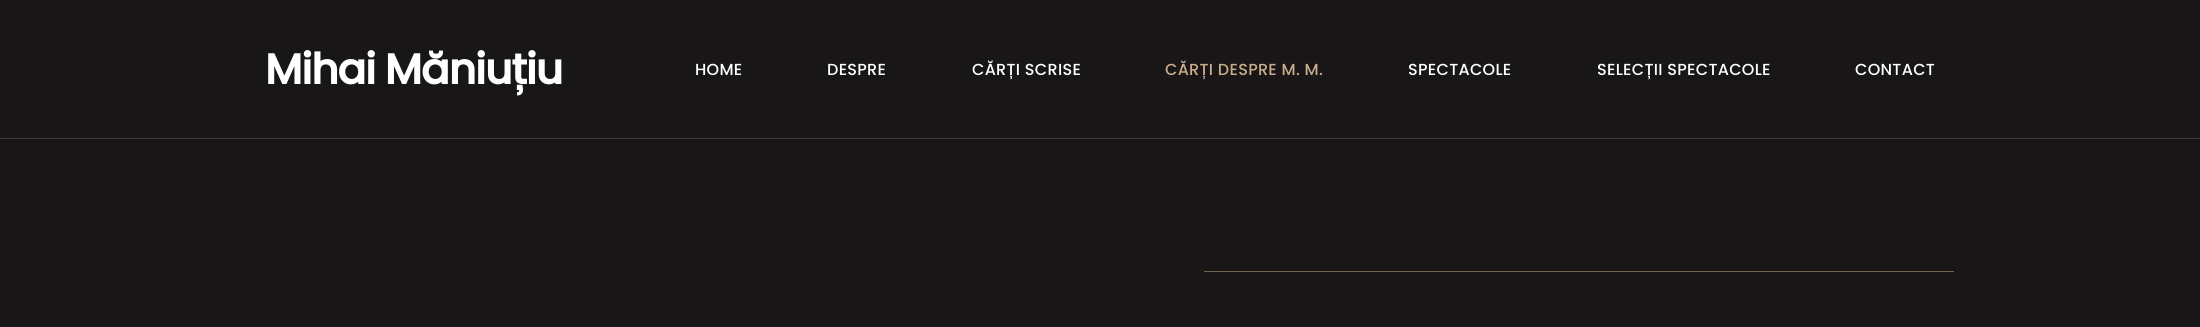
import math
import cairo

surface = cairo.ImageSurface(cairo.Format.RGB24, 2200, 327)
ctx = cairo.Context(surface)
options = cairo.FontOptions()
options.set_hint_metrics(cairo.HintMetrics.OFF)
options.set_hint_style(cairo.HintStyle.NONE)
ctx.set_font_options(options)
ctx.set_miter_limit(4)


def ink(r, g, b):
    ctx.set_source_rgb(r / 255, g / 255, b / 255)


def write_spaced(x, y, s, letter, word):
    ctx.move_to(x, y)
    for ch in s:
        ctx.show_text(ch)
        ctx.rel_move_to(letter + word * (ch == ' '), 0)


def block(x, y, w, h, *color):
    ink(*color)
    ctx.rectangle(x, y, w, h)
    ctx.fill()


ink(24, 22, 22)
ctx.paint()
ctx.select_font_face("Poppins", cairo.FontSlant.NORMAL, cairo.FontWeight.BOLD)
ctx.set_font_size(42.5)
ink(255, 255, 255)
write_spaced(265, 84, "Mihai Măniuțiu", -1.25, 0)
ctx.select_font_face("Poppins Medium")
ctx.set_font_size(16)
write_spaced(695, 75, "HOME", 0.3, 0)
write_spaced(827, 75, "DESPRE", 0.3, 0)
write_spaced(972, 75, "CĂRȚI SCRISE", 0.3, 0)
ink(201, 172, 140)
write_spaced(1165, 75, "CĂRȚI DESPRE M. M.", 0.3, 0)
ink(255, 255, 255)
write_spaced(1408, 75, "SPECTACOLE", 0.3, 0)
write_spaced(1597, 75, "SELECȚII SPECTACOLE", 0.3, 0)
write_spaced(1855, 75, "CONTACT", 0.3, 0)
block(0, 138, 2200, 1, 59, 57, 57)
block(1204, 271, 750, 1, 113, 97, 81)
surface.write_to_png("screenshot.png")
